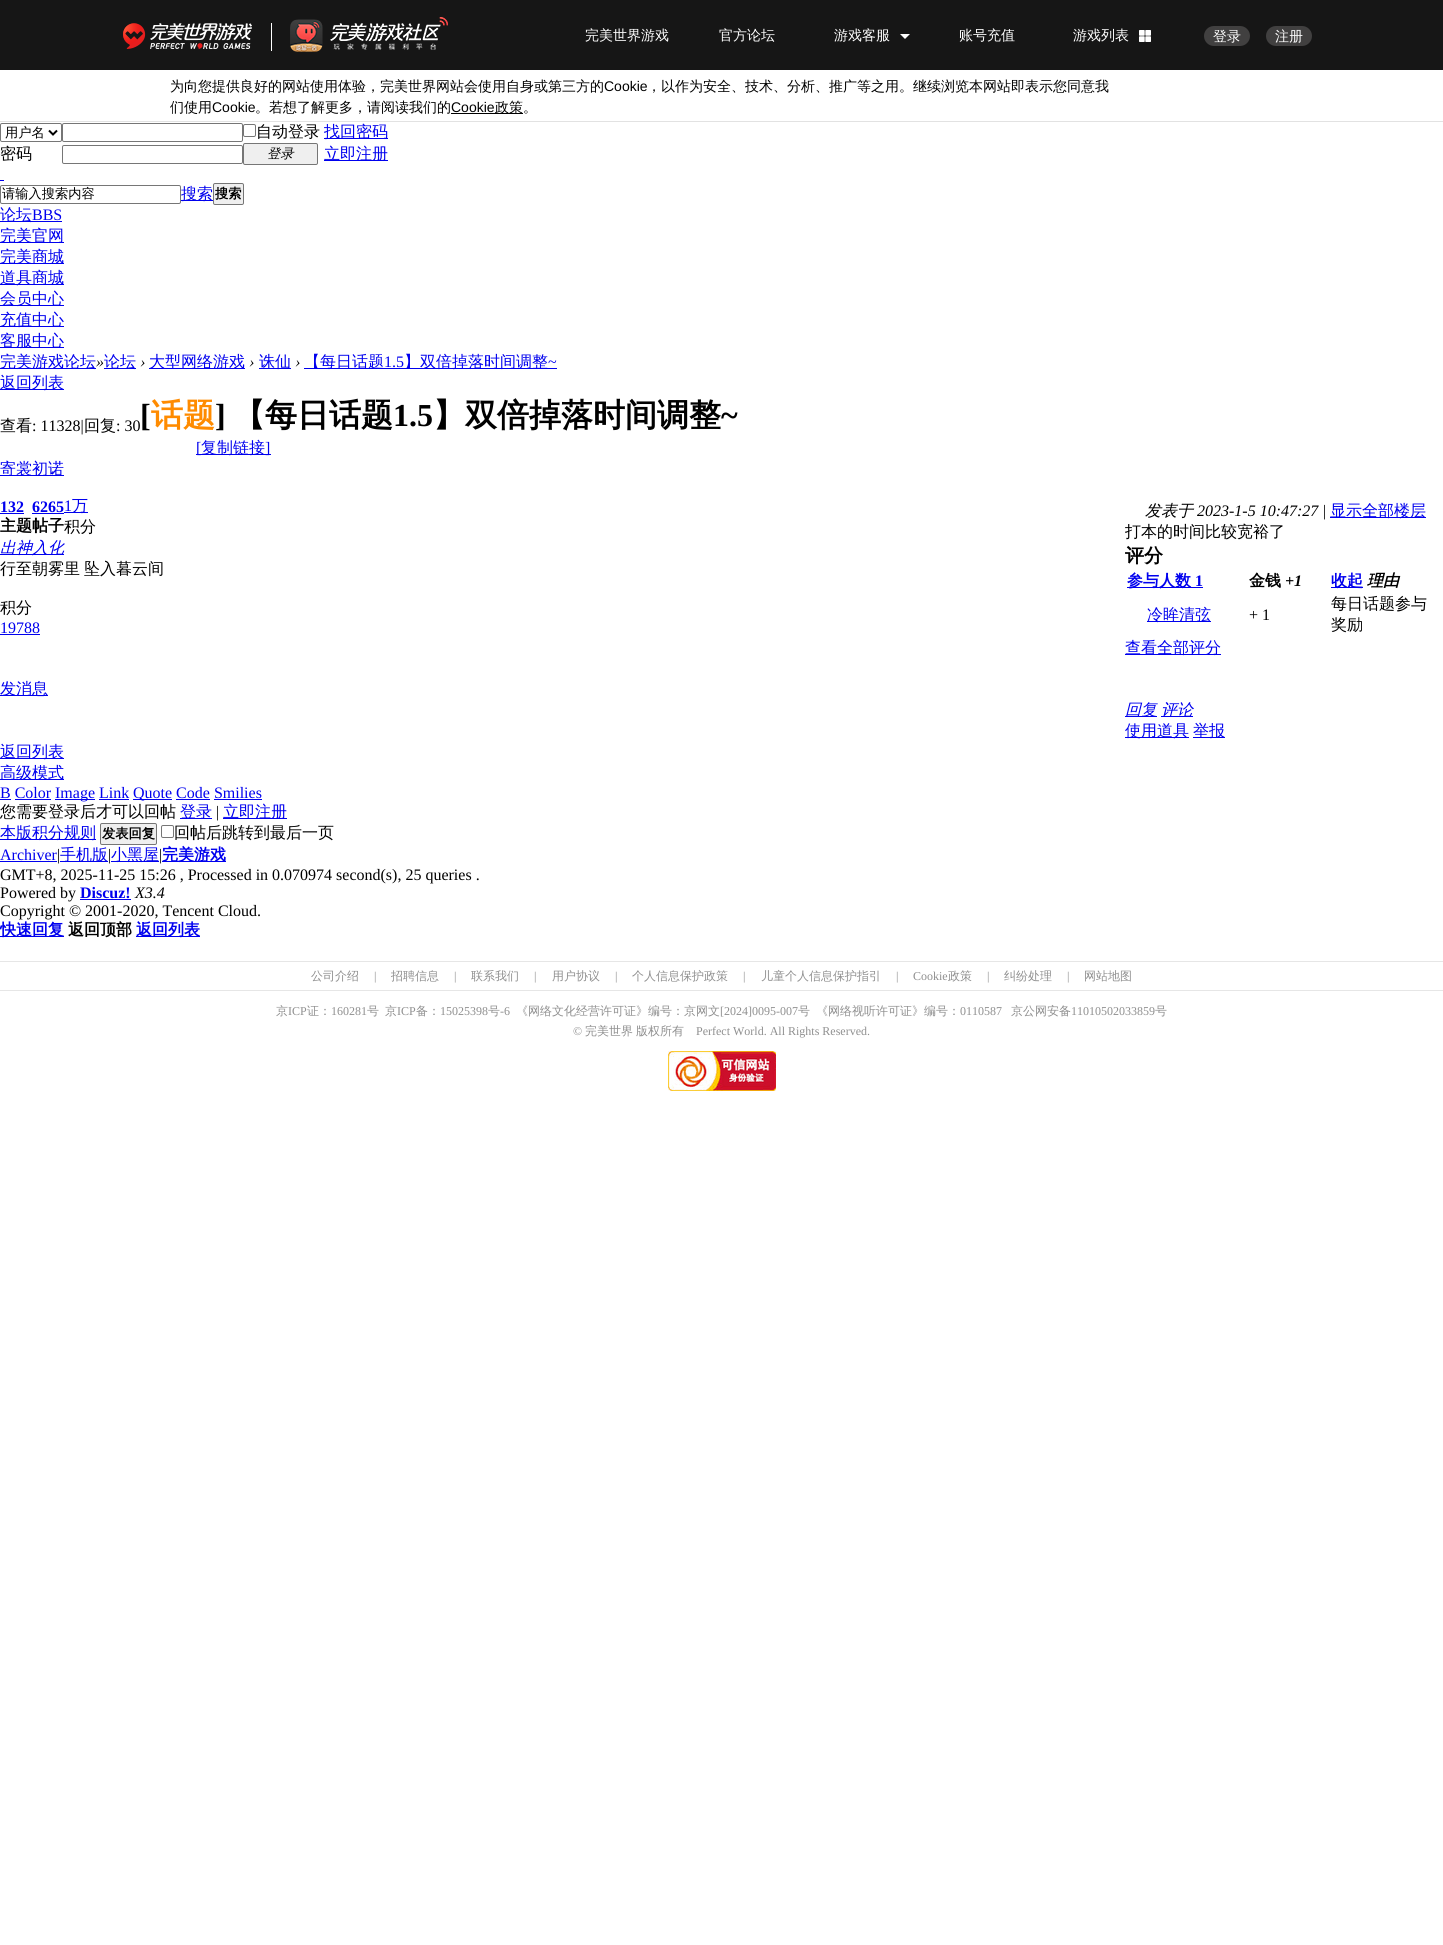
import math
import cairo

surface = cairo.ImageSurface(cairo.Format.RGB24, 1443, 1945)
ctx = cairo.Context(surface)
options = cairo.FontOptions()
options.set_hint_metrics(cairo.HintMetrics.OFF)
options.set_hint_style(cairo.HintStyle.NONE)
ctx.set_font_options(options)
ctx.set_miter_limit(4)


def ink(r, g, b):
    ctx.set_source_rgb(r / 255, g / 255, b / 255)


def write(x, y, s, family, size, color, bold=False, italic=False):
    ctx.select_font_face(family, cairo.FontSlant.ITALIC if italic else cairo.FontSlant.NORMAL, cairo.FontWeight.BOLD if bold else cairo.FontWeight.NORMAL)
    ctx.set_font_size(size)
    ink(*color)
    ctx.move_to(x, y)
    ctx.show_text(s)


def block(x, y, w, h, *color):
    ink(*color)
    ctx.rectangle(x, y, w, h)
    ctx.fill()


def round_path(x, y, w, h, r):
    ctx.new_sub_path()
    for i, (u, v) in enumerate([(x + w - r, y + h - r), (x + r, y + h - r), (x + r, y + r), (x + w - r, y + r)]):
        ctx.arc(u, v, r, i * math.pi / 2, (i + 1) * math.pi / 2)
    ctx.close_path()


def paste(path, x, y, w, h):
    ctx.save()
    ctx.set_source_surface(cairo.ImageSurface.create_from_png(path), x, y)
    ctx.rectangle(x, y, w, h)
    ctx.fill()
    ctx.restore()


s1 = dict(family="WenQuanYi Zen Hei Medium", size=14, color=(255, 255, 255))
s2 = dict(family="WenQuanYi Zen Hei Medium", size=14, color=(0, 0, 0))
s3 = dict(family="Liberation Sans", size=14, color=(0, 0, 0))
s4 = dict(family="WenQuanYi Zen Hei Medium", size=13.25, color=(0, 0, 0))
s5 = dict(family="WenQuanYi Zen Hei Medium", size=16, color=(0, 0, 0))
s6 = dict(family="WenQuanYi Zen Hei Medium", size=16, color=(0, 0, 238))
s7 = dict(family="WenQuanYi Zen Hei Medium", size=13.25, color=(0, 0, 0), italic=True)
s8 = dict(family="WenQuanYi Zen Hei", size=13.25, color=(0, 0, 0), bold=True)
s9 = dict(family="Liberation Serif", size=16, color=(0, 0, 238))
s10 = dict(family="Liberation Serif", size=16, color=(0, 0, 0), italic=True)
s11 = dict(family="Liberation Serif", size=16, color=(0, 0, 0))
s12 = dict(family="Liberation Serif", size=32, color=(0, 0, 0), bold=True)
s13 = dict(family="WenQuanYi Zen Hei", size=32, color=(255, 139, 0), bold=True)
s14 = dict(family="WenQuanYi Zen Hei", size=32, color=(0, 0, 0), bold=True)
s15 = dict(family="Liberation Serif", size=16, color=(0, 0, 238), bold=True)
s16 = dict(family="WenQuanYi Zen Hei", size=16, color=(0, 0, 0), bold=True)
s17 = dict(family="WenQuanYi Zen Hei Medium", size=16, color=(0, 0, 238), italic=True)
s18 = dict(family="WenQuanYi Zen Hei Medium", size=16, color=(0, 0, 0), italic=True)
s19 = dict(family="WenQuanYi Zen Hei", size=19, color=(0, 0, 0), bold=True)
s20 = dict(family="WenQuanYi Zen Hei", size=16, color=(0, 0, 238), bold=True)
s21 = dict(family="Liberation Serif", size=16, color=(0, 0, 0), bold=True, italic=True)
s22 = dict(family="WenQuanYi Zen Hei", size=16, color=(0, 0, 0), bold=True, italic=True)
s23 = dict(family="WenQuanYi Zen Hei Medium", size=12, color=(143, 143, 143))
s24 = dict(family="Liberation Serif", size=12, color=(143, 143, 143))

ink(255, 255, 255)
ctx.paint()
block(0, 0, 1443, 70, 22, 22, 22)
paste("pic1.png", 123, 17, 325, 35)
write(585, 40, "完美世界游戏", **s1)
write(719, 40, "官方论坛", **s1)
write(834, 40, "游戏客服", **s1)
paste("pic2.png", 900, 34, 10, 5)
write(959, 40, "账号充值", **s1)
write(1073, 40, "游戏列表", **s1)
paste("pic3.png", 1139, 30, 12, 12)
ink(65, 64, 64)
round_path(1204, 26, 46, 20, 10)
ctx.fill()
write(1213, 41, "登录", **s1)
ink(65, 64, 64)
round_path(1266, 26, 46, 20, 10)
ctx.fill()
write(1275, 41, "注册", **s1)
block(0, 121, 1443, 1, 226, 226, 226)
write(170, 91, "为向您提供良好的网站使用体验，完美世界网站会使用自身或第三方的", **s2)
write(604, 91, "Cookie", **s3)
write(647, 91, "，以作为安全、技术、分析、推广等之用。继续浏览本网站即表示您同意我", **s2)
write(170, 112, "们使用", **s2)
write(212, 112, "Cookie", **s3)
write(255, 112, "。若想了解更多，请阅读我们的", **s2)
write(451, 112, "Cookie", **s3)
block(451, 113, 72, 1, 0, 0, 0)
write(495, 112, "政策。", **s2)
round_path(0.5, 123.5, 61, 18, 1.5)
ink(118, 118, 118)
ctx.set_line_width(1)
ctx.stroke()
ctx.new_path()
ctx.move_to(49, 130.5)
ctx.line_to(53, 134.5)
ctx.line_to(57, 130.5)
ink(0, 0, 0)
ctx.set_line_width(2)
ctx.stroke()
write(5, 137, "用户名", **s4)
round_path(62.5, 123.5, 180, 18, 1.5)
ink(118, 118, 118)
ctx.set_line_width(1)
ctx.stroke()
round_path(243.5, 124.5, 12, 12, 1.5)
ctx.stroke()
write(256, 137, "自动登录", **s5)
block(324, 138, 64, 1, 0, 0, 238)
write(324, 137, "找回密码", **s6)
write(0, 159, "密码", **s5)
round_path(62.5, 145.5, 180, 18, 1.5)
ink(118, 118, 118)
ctx.stroke()
ink(239, 239, 239)
round_path(243.5, 143.5, 74, 21, 1.5)
ctx.fill_preserve()
ink(118, 118, 118)
ctx.stroke()
write(267, 158, "登录", **s7)
block(324, 160, 64, 1, 0, 0, 238)
write(324, 159, "立即注册", **s6)
block(0, 180, 4, 1, 0, 0, 238)
round_path(0.5, 185.5, 180, 18, 1.5)
ink(118, 118, 118)
ctx.stroke()
write(2, 198, "请输入搜索内容", **s4)
block(181, 200, 32, 1, 0, 0, 238)
write(181, 199, "搜索", **s6)
ink(239, 239, 239)
round_path(213.5, 183.5, 30, 21, 1.5)
ctx.fill_preserve()
ink(118, 118, 118)
ctx.stroke()
write(215, 198, "搜索", **s8)
block(0, 221, 62, 1, 0, 0, 238)
write(0, 220, "论坛", **s6)
write(32, 220, "BBS", **s9)
block(0, 242, 64, 1, 0, 0, 238)
write(0, 241, "完美官网", **s6)
block(0, 263, 64, 1, 0, 0, 238)
write(0, 262, "完美商城", **s6)
block(0, 284, 64, 1, 0, 0, 238)
write(0, 283, "道具商城", **s6)
block(0, 305, 64, 1, 0, 0, 238)
write(0, 304, "会员中心", **s6)
block(0, 326, 64, 1, 0, 0, 238)
write(0, 325, "充值中心", **s6)
block(0, 347, 64, 1, 0, 0, 238)
write(0, 346, "客服中心", **s6)
block(0, 368, 96, 1, 0, 0, 238)
write(0, 367, "完美游戏论坛", **s6)
write(96, 367, "»", **s10)
block(104, 368, 32, 1, 0, 0, 238)
write(104, 367, "论坛", **s6)
write(140, 367, "›", **s10)
block(149, 368, 96, 1, 0, 0, 238)
write(149, 367, "大型网络游戏", **s6)
write(249, 367, "›", **s10)
block(259, 368, 32, 1, 0, 0, 238)
write(259, 367, "诛仙", **s6)
write(295, 367, "›", **s10)
block(304, 368, 253, 1, 0, 0, 238)
write(304, 367, "【每日话题", **s6)
write(384, 367, "1.5", **s9)
write(404, 367, "】双倍掉落时间调整", **s6)
write(548, 367, "~", **s9)
block(0, 389, 64, 1, 0, 0, 238)
write(0, 388, "返回列表", **s6)
write(0, 431, "查看", **s5)
write(32, 431, ": 11328|", **s11)
write(84, 431, "回复", **s5)
write(116, 431, ": 30", **s11)
write(140, 426, "[", **s12)
write(151, 426, "话题", **s13)
write(215, 426, "]", **s12)
write(233, 426, "【每日话题", **s14)
write(393, 426, "1.5", **s12)
write(433, 426, "】双倍掉落时间调整", **s14)
write(721, 426, "~", **s12)
block(196, 454, 75, 1, 0, 0, 238)
write(196, 453, "[", **s9)
write(201, 453, "复制链接", **s6)
write(265, 453, "]", **s9)
block(0, 475, 64, 1, 0, 0, 238)
write(0, 474, "寄裳初诺", **s6)
write(0, 512, "132", **s15)
block(0, 513, 24, 1, 0, 0, 238)
write(0, 531, "主题帖子", **s16)
write(64, 511, "1", **s9)
block(64, 512, 24, 1, 0, 0, 238)
write(72, 511, "万", **s6)
write(64, 532, "积分", **s5)
write(32, 512, "6265", **s15)
block(32, 513, 32, 1, 0, 0, 238)
block(0, 554, 64, 1, 0, 0, 238)
write(0, 553, "出神入化", **s17)
write(0, 574, "行至朝雾里", **s5)
write(84, 574, "坠入暮云间", **s5)
write(0, 613, "积分", **s5)
write(0, 633, "19788", **s9)
block(0, 634, 40, 1, 0, 0, 238)
block(0, 695, 48, 1, 0, 0, 238)
write(0, 694, "发消息", **s6)
write(1145, 516, "发表于", **s18)
write(1197, 516, "2023-1-5 10:47:27", **s10)
write(1323, 516, "|", **s11)
block(1330, 517, 96, 1, 0, 0, 238)
write(1330, 516, "显示全部楼层", **s6)
write(1125, 537, "打本的时间比较宽裕了", **s5)
write(1125, 562, "评分", **s19)
block(1127, 587, 76, 1, 0, 0, 238)
write(1127, 586, "参与人数", **s20)
write(1195, 586, "1", **s15)
write(1249, 586, "金钱", **s16)
write(1285, 586, "+1", **s21)
block(1331, 587, 32, 1, 0, 0, 238)
write(1331, 586, "收起", **s20)
write(1367, 586, "理由", **s22)
block(1147, 621, 64, 1, 0, 0, 238)
write(1147, 620, "冷眸清弦", **s6)
write(1249, 620, "+ 1", **s11)
write(1331, 609, "每日话题参与", **s5)
write(1331, 630, "奖励", **s5)
block(1125, 654, 96, 1, 0, 0, 238)
write(1125, 653, "查看全部评分", **s6)
block(1125, 716, 32, 1, 0, 0, 238)
write(1125, 715, "回复", **s17)
block(1161, 716, 32, 1, 0, 0, 238)
write(1161, 715, "评论", **s17)
block(1125, 737, 64, 1, 0, 0, 238)
write(1125, 736, "使用道具", **s6)
block(1193, 737, 32, 1, 0, 0, 238)
write(1193, 736, "举报", **s6)
block(0, 758, 64, 1, 0, 0, 238)
write(0, 757, "返回列表", **s6)
block(0, 779, 64, 1, 0, 0, 238)
write(0, 778, "高级模式", **s6)
write(0, 798, "B Color", **s9)
block(0, 799, 11, 1, 0, 0, 238)
block(55, 799, 40, 1, 0, 0, 238)
write(55, 798, "Image Link", **s9)
block(133, 799, 39, 1, 0, 0, 238)
write(133, 798, "Quote Code Smilies", **s9)
block(15, 799, 36, 1, 0, 0, 238)
block(99, 799, 30, 1, 0, 0, 238)
block(176, 799, 34, 1, 0, 0, 238)
block(214, 799, 48, 1, 0, 0, 238)
write(0, 817, "您需要登录后才可以回帖", **s5)
block(180, 818, 32, 1, 0, 0, 238)
write(180, 817, "登录", **s6)
write(216, 817, "|", **s11)
block(223, 818, 64, 1, 0, 0, 238)
write(223, 817, "立即注册", **s6)
block(0, 839, 96, 1, 0, 0, 238)
write(0, 838, "本版积分规则", **s6)
ink(239, 239, 239)
round_path(100.5, 823.5, 56, 21, 1.5)
ctx.fill_preserve()
ink(118, 118, 118)
ctx.stroke()
write(102, 838, "发表回复", **s8)
round_path(161.5, 825.5, 12, 12, 1.5)
ink(118, 118, 118)
ctx.stroke()
write(174, 838, "回帖后跳转到最后一页", **s5)
write(0, 860, "Archiver", **s9)
block(0, 861, 57, 1, 0, 0, 238)
write(57, 860, "|", **s11)
block(60, 861, 48, 1, 0, 0, 238)
write(60, 860, "手机版", **s6)
write(108, 860, "|", **s11)
block(111, 861, 48, 1, 0, 0, 238)
write(111, 860, "小黑屋", **s6)
write(159, 860, "|", **s11)
block(162, 861, 64, 1, 0, 0, 238)
write(162, 860, "完美游戏", **s20)
write(0, 880, "GMT+8, 2025-11-25 15:26 , Processed in 0.070974 second(s), 25 queries .", **s11)
write(0, 898, "Powered by", **s11)
write(80, 898, "Discuz!", **s15)
block(80, 899, 51, 1, 0, 0, 238)
write(135, 898, "X3.4", **s10)
write(0, 916, "Copyright © 2001-2020, Tencent Cloud.", **s11)
block(0, 936, 64, 1, 0, 0, 238)
write(0, 935, "快速回复", **s20)
write(68, 935, "返回顶部", **s16)
block(136, 936, 64, 1, 0, 0, 238)
write(136, 935, "返回列表", **s20)
block(0, 961, 1443, 1, 230, 230, 230)
block(0, 990, 1443, 1, 230, 230, 230)
write(311, 980, "公司介绍", **s23)
write(374, 980, "|", **s24)
write(391, 980, "招聘信息", **s23)
write(454, 980, "|", **s24)
write(471, 980, "联系我们", **s23)
write(534, 980, "|", **s24)
write(552, 980, "用户协议", **s23)
write(615, 980, "|", **s24)
write(632, 980, "个人信息保护政策", **s23)
write(743, 980, "|", **s24)
write(761, 980, "儿童个人信息保护指引", **s23)
write(896, 980, "|", **s24)
write(913, 980, "Cookie", **s24)
write(948, 980, "政策", **s23)
write(987, 980, "|", **s24)
write(1004, 980, "纠纷处理", **s23)
write(1067, 980, "|", **s24)
write(1084, 980, "网站地图", **s23)
write(276, 1015, "京", **s23)
write(288, 1015, "ICP", **s24)
write(307, 1015, "证：", **s23)
write(331, 1015, "160281", **s24)
write(367, 1015, "号", **s23)
write(385, 1015, "京", **s23)
write(397, 1015, "ICP", **s24)
write(416, 1015, "备：", **s23)
write(440, 1015, "15025398", **s24)
write(488, 1015, "号", **s23)
write(500, 1015, "-6", **s24)
write(516, 1015, "《网络文化经营许可证》编号：京网文", **s23)
write(720, 1015, "[2024]0095-007", **s24)
write(798, 1015, "号", **s23)
write(816, 1015, "《网络视听许可证》编号：", **s23)
write(960, 1015, "0110587", **s24)
write(1011, 1015, "京公网安备", **s23)
write(1071, 1015, "11010502033859", **s24)
write(1155, 1015, "号", **s23)
write(573, 1035, "©", **s24)
write(585, 1035, "完美世界", **s23)
write(636, 1035, "版权所有", **s23)
write(696, 1035, "Perfect World. All Rights Reserved.", **s24)
paste("pic4.png", 668, 1051, 108, 40)
surface.write_to_png("screenshot.png")
